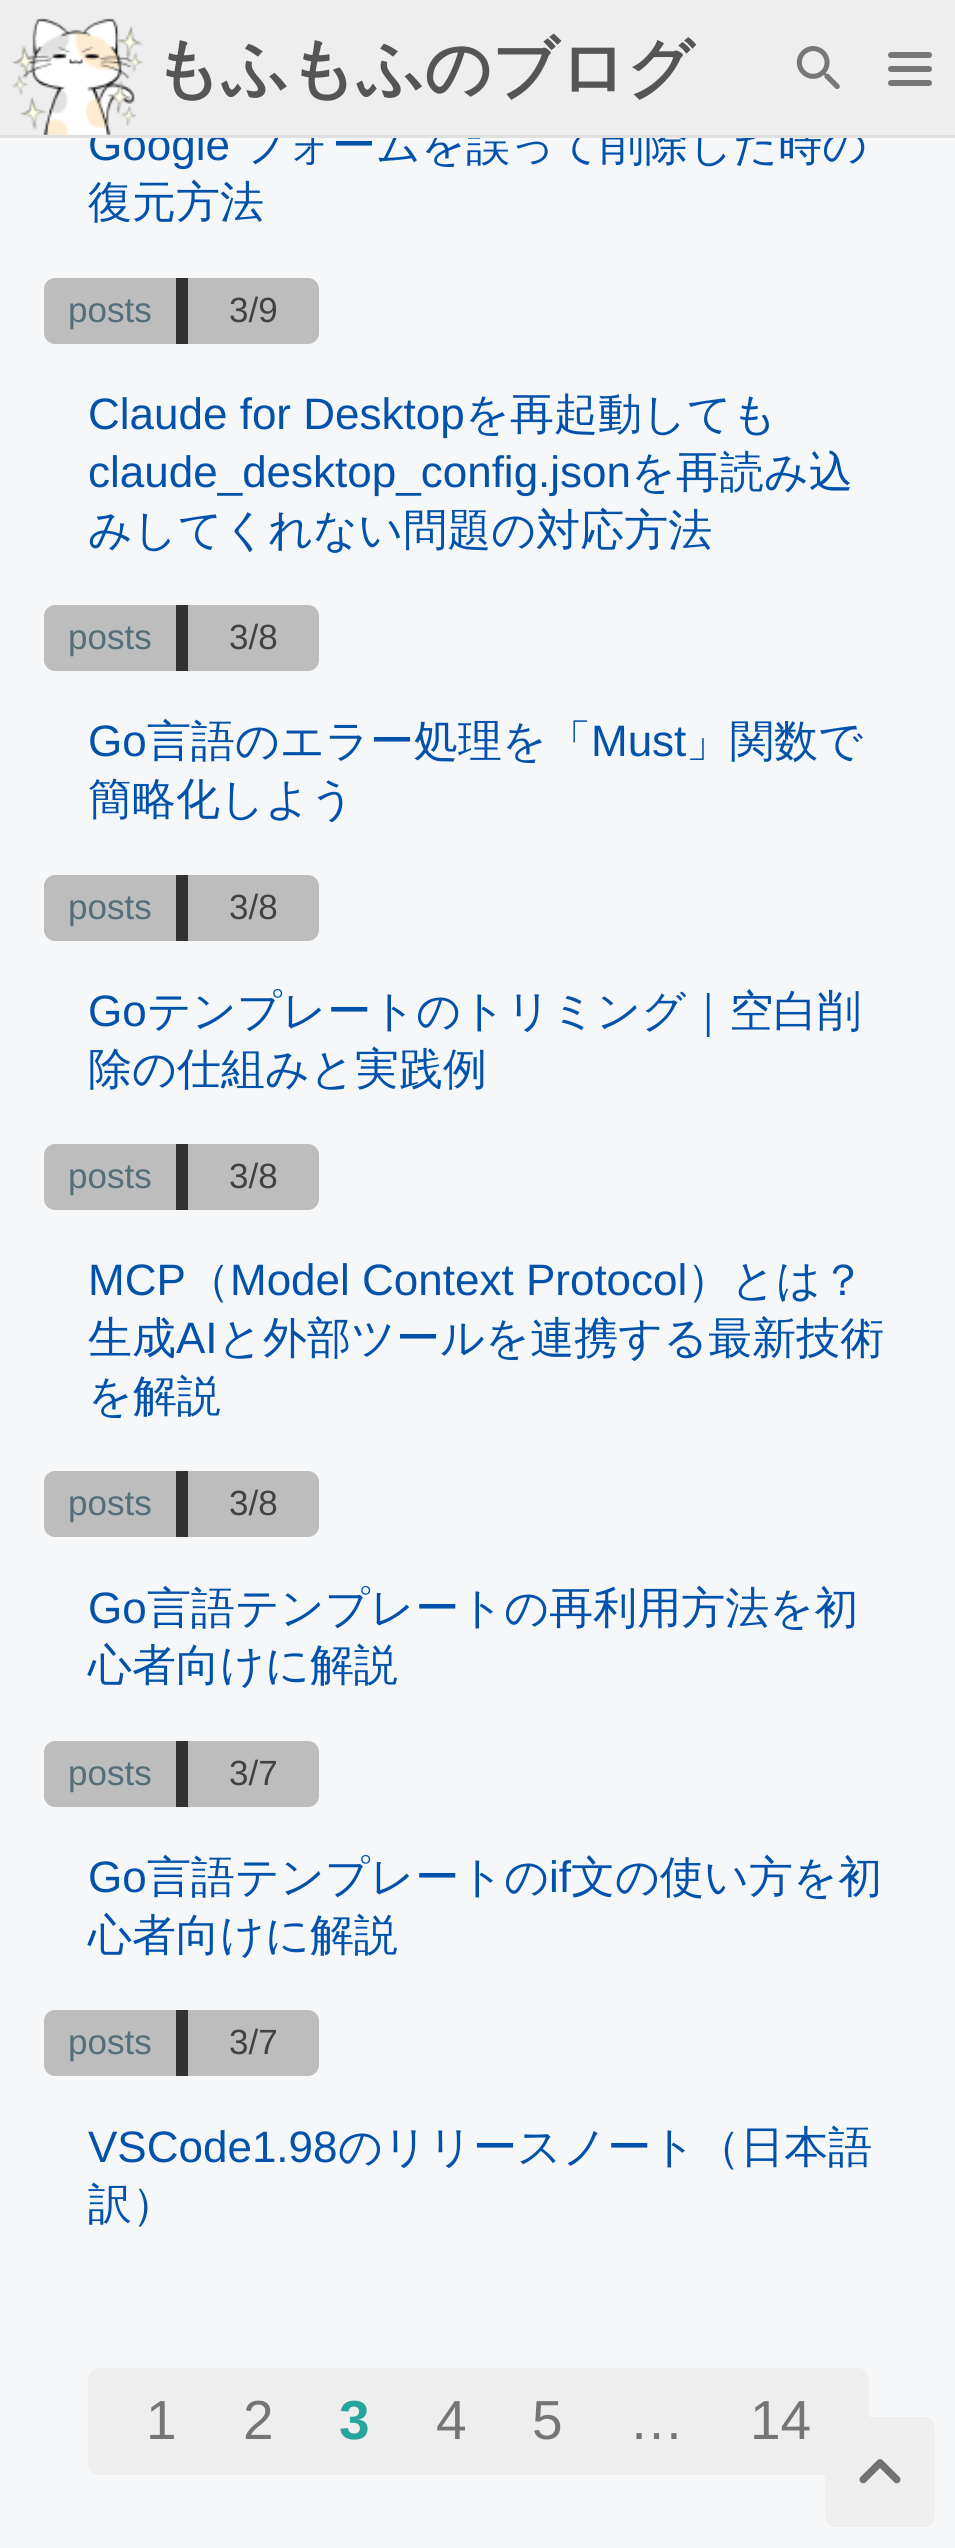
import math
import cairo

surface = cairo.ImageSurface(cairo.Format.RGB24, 955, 2548)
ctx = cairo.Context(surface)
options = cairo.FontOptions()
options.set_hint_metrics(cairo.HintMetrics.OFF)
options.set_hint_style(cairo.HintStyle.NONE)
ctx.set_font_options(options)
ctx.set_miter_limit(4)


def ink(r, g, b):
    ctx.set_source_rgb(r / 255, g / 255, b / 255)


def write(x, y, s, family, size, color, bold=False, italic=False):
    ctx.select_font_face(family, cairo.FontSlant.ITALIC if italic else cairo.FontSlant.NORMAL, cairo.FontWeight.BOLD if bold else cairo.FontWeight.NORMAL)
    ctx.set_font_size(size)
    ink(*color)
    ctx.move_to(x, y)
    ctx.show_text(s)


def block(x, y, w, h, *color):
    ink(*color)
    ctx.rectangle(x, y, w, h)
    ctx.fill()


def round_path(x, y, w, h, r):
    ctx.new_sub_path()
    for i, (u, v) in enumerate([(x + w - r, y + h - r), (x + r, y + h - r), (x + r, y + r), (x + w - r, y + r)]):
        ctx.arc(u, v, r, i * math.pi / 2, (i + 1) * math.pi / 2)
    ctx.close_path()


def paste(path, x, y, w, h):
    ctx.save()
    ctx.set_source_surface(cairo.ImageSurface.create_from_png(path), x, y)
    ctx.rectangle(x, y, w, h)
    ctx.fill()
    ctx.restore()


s1 = dict(family="Liberation Sans", size=44, color=(2, 82, 171))
s2 = dict(family="WenQuanYi Zen Hei Medium", size=44, color=(2, 82, 171))
s3 = dict(family="WenQuanYi Zen Hei", size=66, color=(85, 85, 85), bold=True)
s4 = dict(family="Liberation Sans", size=35, color=(84, 110, 122))
s5 = dict(family="Liberation Sans", size=35, color=(66, 66, 66))
s6 = dict(family="Liberation Sans", size=55, color=(117, 117, 117))
s7 = dict(family="Liberation Sans", size=55, color=(38, 166, 154), bold=True)

ink(246, 247, 249)
ctx.paint()
write(88, 160, "Google", **s1)
write(242, 160, "フォームを誤って削除した時の", **s2)
block(0, 0, 765, 135, 238, 238, 238)
block(0, 135, 765, 3, 224, 224, 224)
paste("pic1.png", 11, 17, 132, 118)
write(154, 91, "もふもふのブログ", **s3)
block(765, 0, 190, 135, 238, 238, 238)
block(765, 135, 190, 3, 224, 224, 224)
ink(119, 119, 119)
round_path(888, 52, 44, 6, 3)
ctx.fill()
round_path(888, 66, 44, 6, 3)
ctx.fill()
round_path(888, 80, 44, 6, 3)
ctx.fill()
paste("pic2.png", 796, 46, 44, 43)
write(88, 217, "復元方法", **s2)
ink(189, 189, 189)
ctx.new_path()
ctx.move_to(55, 278)
ctx.line_to(182, 278)
ctx.line_to(182, 344)
ctx.line_to(55, 344)
ctx.curve_to(49, 344, 44, 339, 44, 333)
ctx.line_to(44, 289)
ctx.curve_to(44, 283, 49, 278, 55, 278)
ctx.close_path()
ctx.fill()
block(176, 278, 6, 66, 50, 50, 50)
write(68, 322, "posts", **s4)
ink(189, 189, 189)
ctx.new_path()
ctx.move_to(182, 278)
ctx.line_to(308, 278)
ctx.curve_to(314, 278, 319, 283, 319, 289)
ctx.line_to(319, 333)
ctx.curve_to(319, 339, 314, 344, 308, 344)
ctx.line_to(182, 344)
ctx.close_path()
ctx.fill()
block(182, 278, 6, 66, 50, 50, 50)
write(229, 322, "3/9", **s5)
write(88, 429, "Claude for Desktop", **s1)
write(465, 429, "を再起動しても", **s2)
write(88, 487, "claude_desktop_config.json", **s1)
write(631, 487, "を再読み込", **s2)
write(88, 545, "みしてくれない問題の対応方法", **s2)
ink(189, 189, 189)
ctx.new_path()
ctx.move_to(55, 605)
ctx.line_to(182, 605)
ctx.line_to(182, 671)
ctx.line_to(55, 671)
ctx.curve_to(49, 671, 44, 666, 44, 660)
ctx.line_to(44, 616)
ctx.curve_to(44, 610, 49, 605, 55, 605)
ctx.close_path()
ctx.fill()
block(176, 605, 6, 66, 50, 50, 50)
write(68, 649, "posts", **s4)
ink(189, 189, 189)
ctx.new_path()
ctx.move_to(182, 605)
ctx.line_to(308, 605)
ctx.curve_to(314, 605, 319, 610, 319, 616)
ctx.line_to(319, 660)
ctx.curve_to(319, 666, 314, 671, 308, 671)
ctx.line_to(182, 671)
ctx.close_path()
ctx.fill()
block(182, 605, 6, 66, 50, 50, 50)
write(229, 649, "3/8", **s5)
write(88, 756, "Go", **s1)
write(147, 756, "言語のエラー処理を「", **s2)
write(591, 756, "Must", **s1)
write(686, 756, "」関数で", **s2)
write(88, 814, "簡略化しよう", **s2)
ink(189, 189, 189)
ctx.new_path()
ctx.move_to(55, 875)
ctx.line_to(182, 875)
ctx.line_to(182, 941)
ctx.line_to(55, 941)
ctx.curve_to(49, 941, 44, 936, 44, 930)
ctx.line_to(44, 886)
ctx.curve_to(44, 880, 49, 875, 55, 875)
ctx.close_path()
ctx.fill()
block(176, 875, 6, 66, 50, 50, 50)
write(68, 919, "posts", **s4)
ink(189, 189, 189)
ctx.new_path()
ctx.move_to(182, 875)
ctx.line_to(308, 875)
ctx.curve_to(314, 875, 319, 880, 319, 886)
ctx.line_to(319, 930)
ctx.curve_to(319, 936, 314, 941, 308, 941)
ctx.line_to(182, 941)
ctx.close_path()
ctx.fill()
block(182, 875, 6, 66, 50, 50, 50)
write(229, 919, "3/8", **s5)
write(88, 1026, "Go", **s1)
write(147, 1026, "テンプレートのトリミング｜空白削", **s2)
write(88, 1084, "除の仕組みと実践例", **s2)
ink(189, 189, 189)
ctx.new_path()
ctx.move_to(55, 1144)
ctx.line_to(182, 1144)
ctx.line_to(182, 1210)
ctx.line_to(55, 1210)
ctx.curve_to(49, 1210, 44, 1205, 44, 1199)
ctx.line_to(44, 1155)
ctx.curve_to(44, 1149, 49, 1144, 55, 1144)
ctx.close_path()
ctx.fill()
block(176, 1144, 6, 66, 50, 50, 50)
write(68, 1188, "posts", **s4)
ink(189, 189, 189)
ctx.new_path()
ctx.move_to(182, 1144)
ctx.line_to(308, 1144)
ctx.curve_to(314, 1144, 319, 1149, 319, 1155)
ctx.line_to(319, 1199)
ctx.curve_to(319, 1205, 314, 1210, 308, 1210)
ctx.line_to(182, 1210)
ctx.close_path()
ctx.fill()
block(182, 1144, 6, 66, 50, 50, 50)
write(229, 1188, "3/8", **s5)
write(88, 1295, "MCP", **s1)
write(186, 1295, "（", **s2)
write(230, 1295, "Model Context Protocol", **s1)
write(687, 1295, "）とは？", **s2)
write(88, 1353, "生成", **s2)
write(176, 1353, "AI", **s1)
write(218, 1353, "と外部ツールを連携する最新技術", **s2)
write(88, 1411, "を解説", **s2)
ink(189, 189, 189)
ctx.new_path()
ctx.move_to(55, 1471)
ctx.line_to(182, 1471)
ctx.line_to(182, 1537)
ctx.line_to(55, 1537)
ctx.curve_to(49, 1537, 44, 1532, 44, 1526)
ctx.line_to(44, 1482)
ctx.curve_to(44, 1476, 49, 1471, 55, 1471)
ctx.close_path()
ctx.fill()
block(176, 1471, 6, 66, 50, 50, 50)
write(68, 1515, "posts", **s4)
ink(189, 189, 189)
ctx.new_path()
ctx.move_to(182, 1471)
ctx.line_to(308, 1471)
ctx.curve_to(314, 1471, 319, 1476, 319, 1482)
ctx.line_to(319, 1526)
ctx.curve_to(319, 1532, 314, 1537, 308, 1537)
ctx.line_to(182, 1537)
ctx.close_path()
ctx.fill()
block(182, 1471, 6, 66, 50, 50, 50)
write(229, 1515, "3/8", **s5)
write(88, 1623, "Go", **s1)
write(147, 1623, "言語テンプレートの再利用方法を初", **s2)
write(88, 1680, "心者向けに解説", **s2)
ink(189, 189, 189)
ctx.new_path()
ctx.move_to(55, 1741)
ctx.line_to(182, 1741)
ctx.line_to(182, 1807)
ctx.line_to(55, 1807)
ctx.curve_to(49, 1807, 44, 1802, 44, 1796)
ctx.line_to(44, 1752)
ctx.curve_to(44, 1746, 49, 1741, 55, 1741)
ctx.close_path()
ctx.fill()
block(176, 1741, 6, 66, 50, 50, 50)
write(68, 1785, "posts", **s4)
ink(189, 189, 189)
ctx.new_path()
ctx.move_to(182, 1741)
ctx.line_to(308, 1741)
ctx.curve_to(314, 1741, 319, 1746, 319, 1752)
ctx.line_to(319, 1796)
ctx.curve_to(319, 1802, 314, 1807, 308, 1807)
ctx.line_to(182, 1807)
ctx.close_path()
ctx.fill()
block(182, 1741, 6, 66, 50, 50, 50)
write(229, 1785, "3/7", **s5)
write(88, 1892, "Go", **s1)
write(147, 1892, "言語テンプレートの", **s2)
write(549, 1892, "if", **s1)
write(571, 1892, "文の使い方を初", **s2)
write(88, 1950, "心者向けに解説", **s2)
ink(189, 189, 189)
ctx.new_path()
ctx.move_to(55, 2010)
ctx.line_to(182, 2010)
ctx.line_to(182, 2076)
ctx.line_to(55, 2076)
ctx.curve_to(49, 2076, 44, 2071, 44, 2065)
ctx.line_to(44, 2021)
ctx.curve_to(44, 2015, 49, 2010, 55, 2010)
ctx.close_path()
ctx.fill()
block(176, 2010, 6, 66, 50, 50, 50)
write(68, 2054, "posts", **s4)
ink(189, 189, 189)
ctx.new_path()
ctx.move_to(182, 2010)
ctx.line_to(308, 2010)
ctx.curve_to(314, 2010, 319, 2015, 319, 2021)
ctx.line_to(319, 2065)
ctx.curve_to(319, 2071, 314, 2076, 308, 2076)
ctx.line_to(182, 2076)
ctx.close_path()
ctx.fill()
block(182, 2010, 6, 66, 50, 50, 50)
write(229, 2054, "3/7", **s5)
write(88, 2162, "VSCode1.98", **s1)
write(338, 2162, "のリリースノート（日本語", **s2)
write(88, 2219, "訳）", **s2)
ink(238, 238, 238)
round_path(88, 2368, 781, 107, 11)
ctx.fill()
write(146, 2439, "1", **s6)
write(243, 2439, "2", **s6)
write(339, 2439, "3", **s7)
write(436, 2439, "4", **s6)
write(532, 2439, "5", **s6)
write(629, 2439, "…", **s6)
write(750, 2439, "14", **s6)
ink(238, 238, 238)
round_path(825, 2417, 110, 110, 11)
ctx.fill()
paste("pic3.png", 859, 2459, 42, 25)
surface.write_to_png("screenshot.png")
